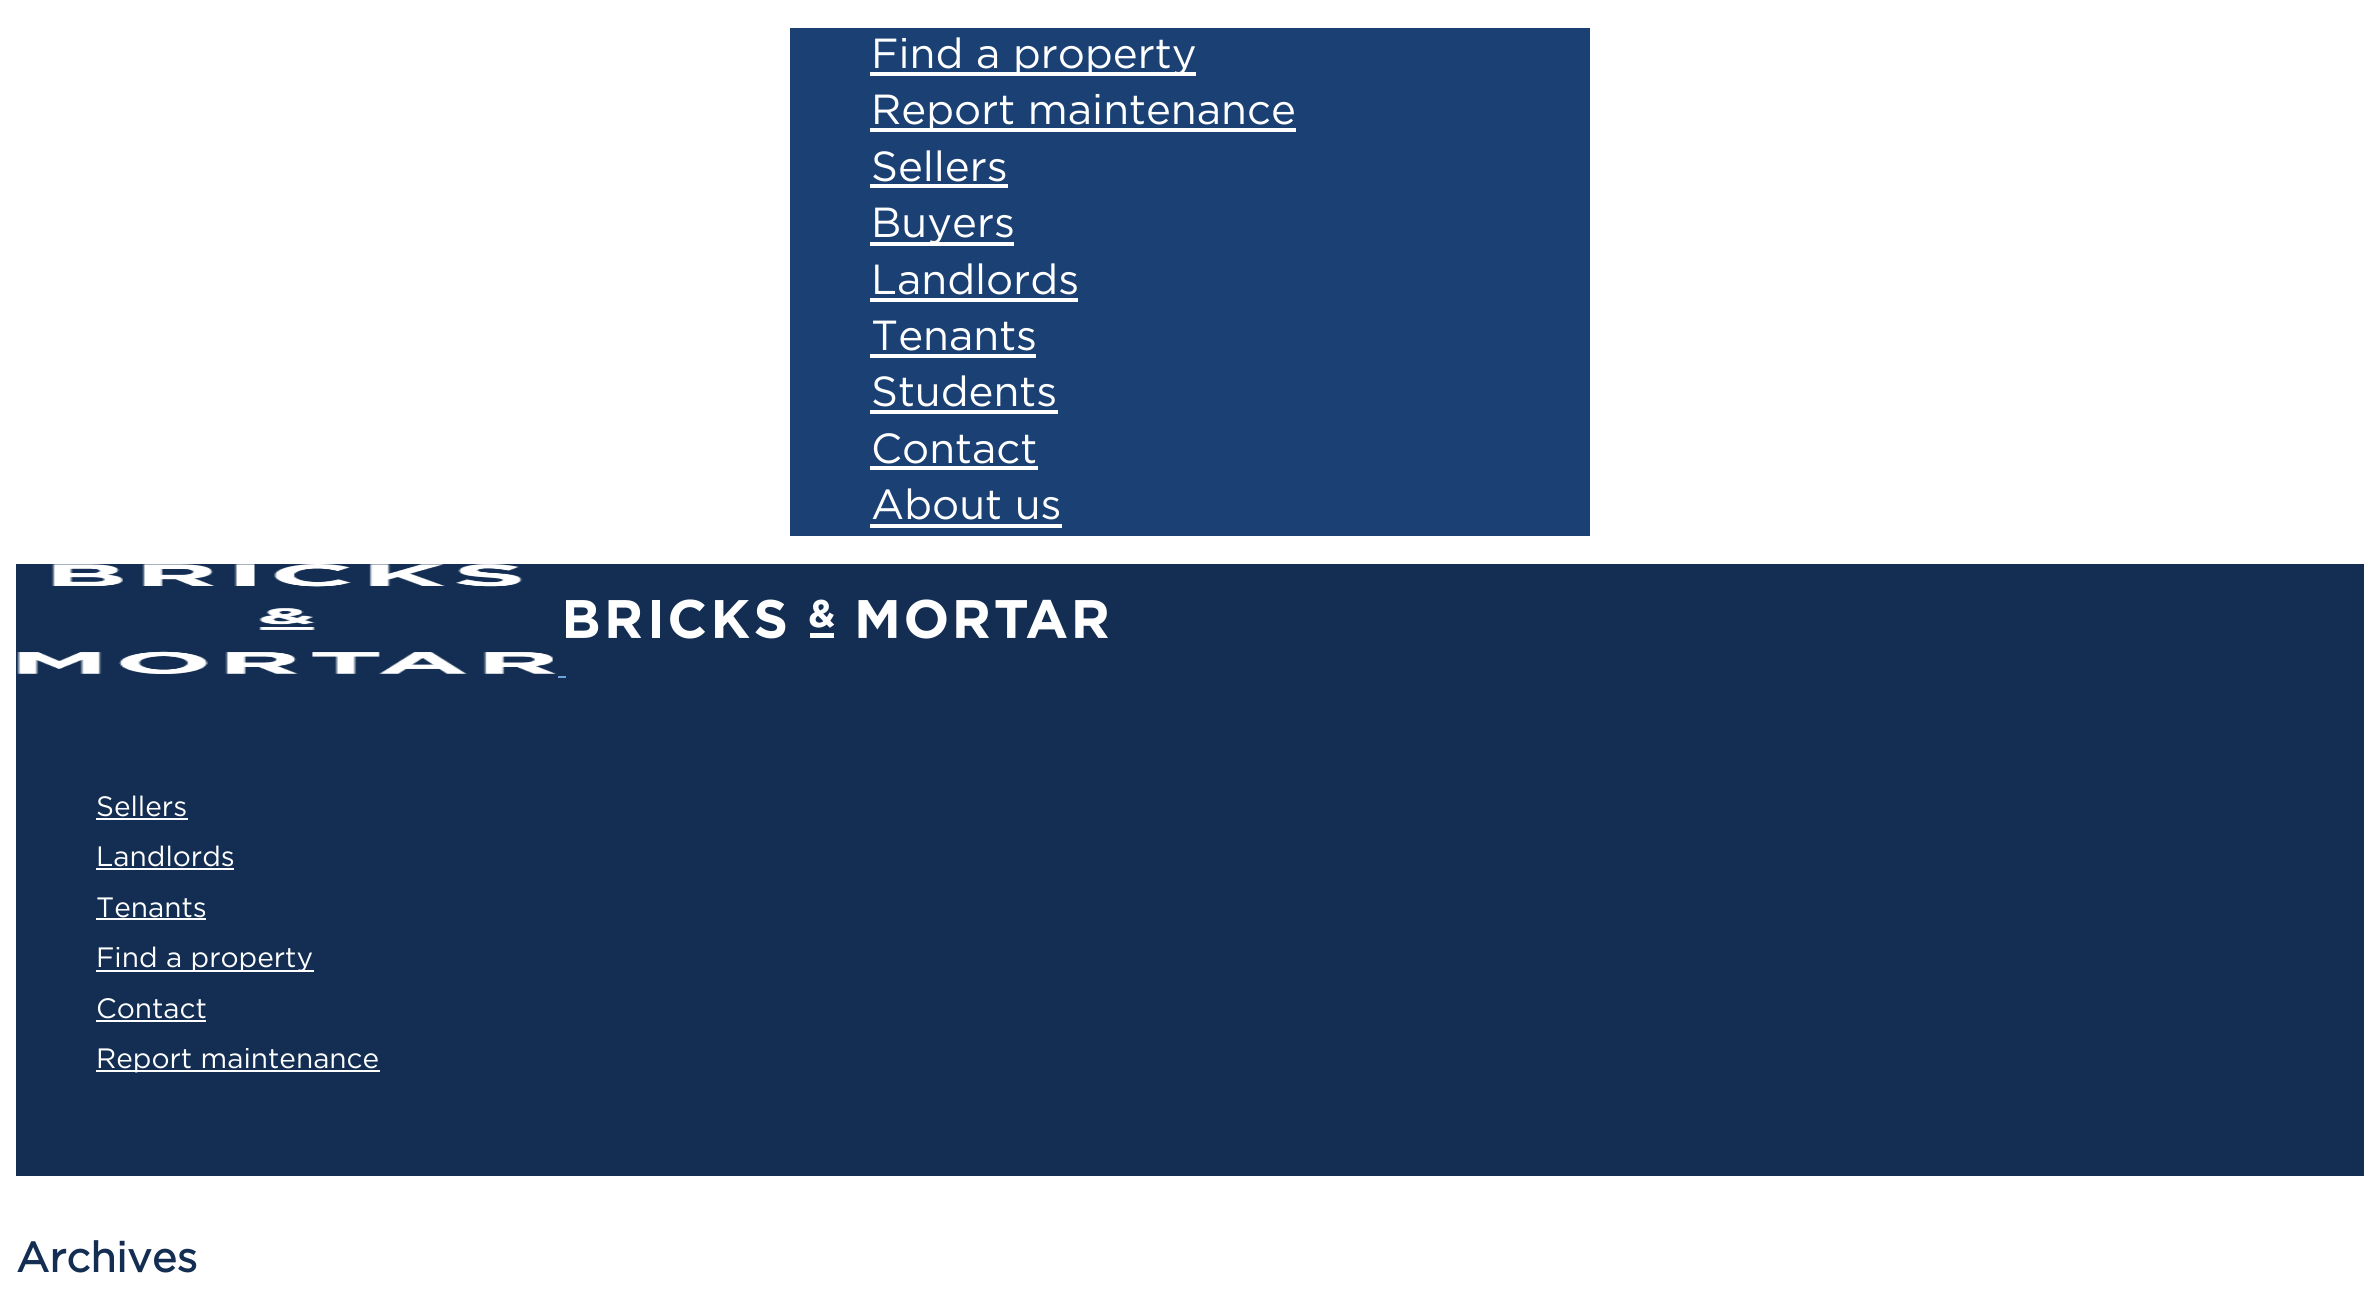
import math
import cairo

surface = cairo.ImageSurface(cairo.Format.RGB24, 2380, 1301)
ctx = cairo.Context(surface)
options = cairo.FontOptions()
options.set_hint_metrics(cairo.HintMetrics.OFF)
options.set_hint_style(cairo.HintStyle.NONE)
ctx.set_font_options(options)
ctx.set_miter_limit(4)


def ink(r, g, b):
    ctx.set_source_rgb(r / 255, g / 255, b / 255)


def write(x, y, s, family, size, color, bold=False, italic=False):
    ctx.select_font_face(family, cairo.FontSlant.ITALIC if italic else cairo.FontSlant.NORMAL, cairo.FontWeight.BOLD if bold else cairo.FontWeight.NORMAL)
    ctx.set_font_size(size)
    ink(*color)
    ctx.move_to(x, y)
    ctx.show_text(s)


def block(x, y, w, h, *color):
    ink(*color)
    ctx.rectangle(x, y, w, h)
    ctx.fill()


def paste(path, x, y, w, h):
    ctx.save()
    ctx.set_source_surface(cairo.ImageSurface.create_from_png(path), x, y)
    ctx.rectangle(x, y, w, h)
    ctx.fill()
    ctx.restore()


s1 = dict(family="Gotham", size=42, color=(255, 255, 255))
s2 = dict(family="Gotham", size=28, color=(255, 255, 255))
s3 = dict(family="Gotham", size=42, color=(19, 46, 82), bold=True)

ink(255, 255, 255)
ctx.paint()
block(790, 28, 800, 508, 27, 65, 116)
block(870, 72, 326, 4, 255, 255, 255)
write(871, 68, "Find a property", **s1)
block(870, 128, 426, 4, 255, 255, 255)
write(871, 124, "Report maintenance", **s1)
write(871, 181, "Sellers", **s1)
block(870, 184, 138, 4, 255, 255, 255)
block(870, 242, 144, 4, 255, 255, 255)
write(871, 237, "Buyers", **s1)
write(871, 294, "Landlords", **s1)
block(870, 298, 208, 4, 255, 255, 255)
write(871, 350, "Tenants", **s1)
block(870, 354, 166, 4, 255, 255, 255)
write(871, 406, "Students", **s1)
block(870, 410, 188, 4, 255, 255, 255)
write(871, 463, "Contact", **s1)
block(870, 466, 168, 4, 255, 255, 255)
write(871, 519, "About us", **s1)
block(870, 524, 192, 4, 255, 255, 255)
block(16, 564, 2348, 612, 19, 46, 82)
paste("pic1.png", 17, 564, 540, 110)
paste("pic2.png", 566, 599, 542, 40)
block(558, 676, 8, 2, 110, 163, 215)
write(96, 816, "Sellers", **s2)
block(96, 818, 92, 2, 255, 255, 255)
write(96, 866, "Landlords", **s2)
block(96, 868, 138, 2, 255, 255, 255)
write(96, 917, "Tenants", **s2)
block(96, 918, 110, 2, 255, 255, 255)
block(96, 970, 218, 2, 255, 255, 255)
write(96, 967, "Find a property", **s2)
write(96, 1018, "Contact", **s2)
block(96, 1020, 110, 2, 255, 255, 255)
block(96, 1070, 284, 2, 255, 255, 255)
write(96, 1068, "Report maintenance", **s2)
write(16, 1272, "Archives", **s3)
surface.write_to_png("screenshot.png")
